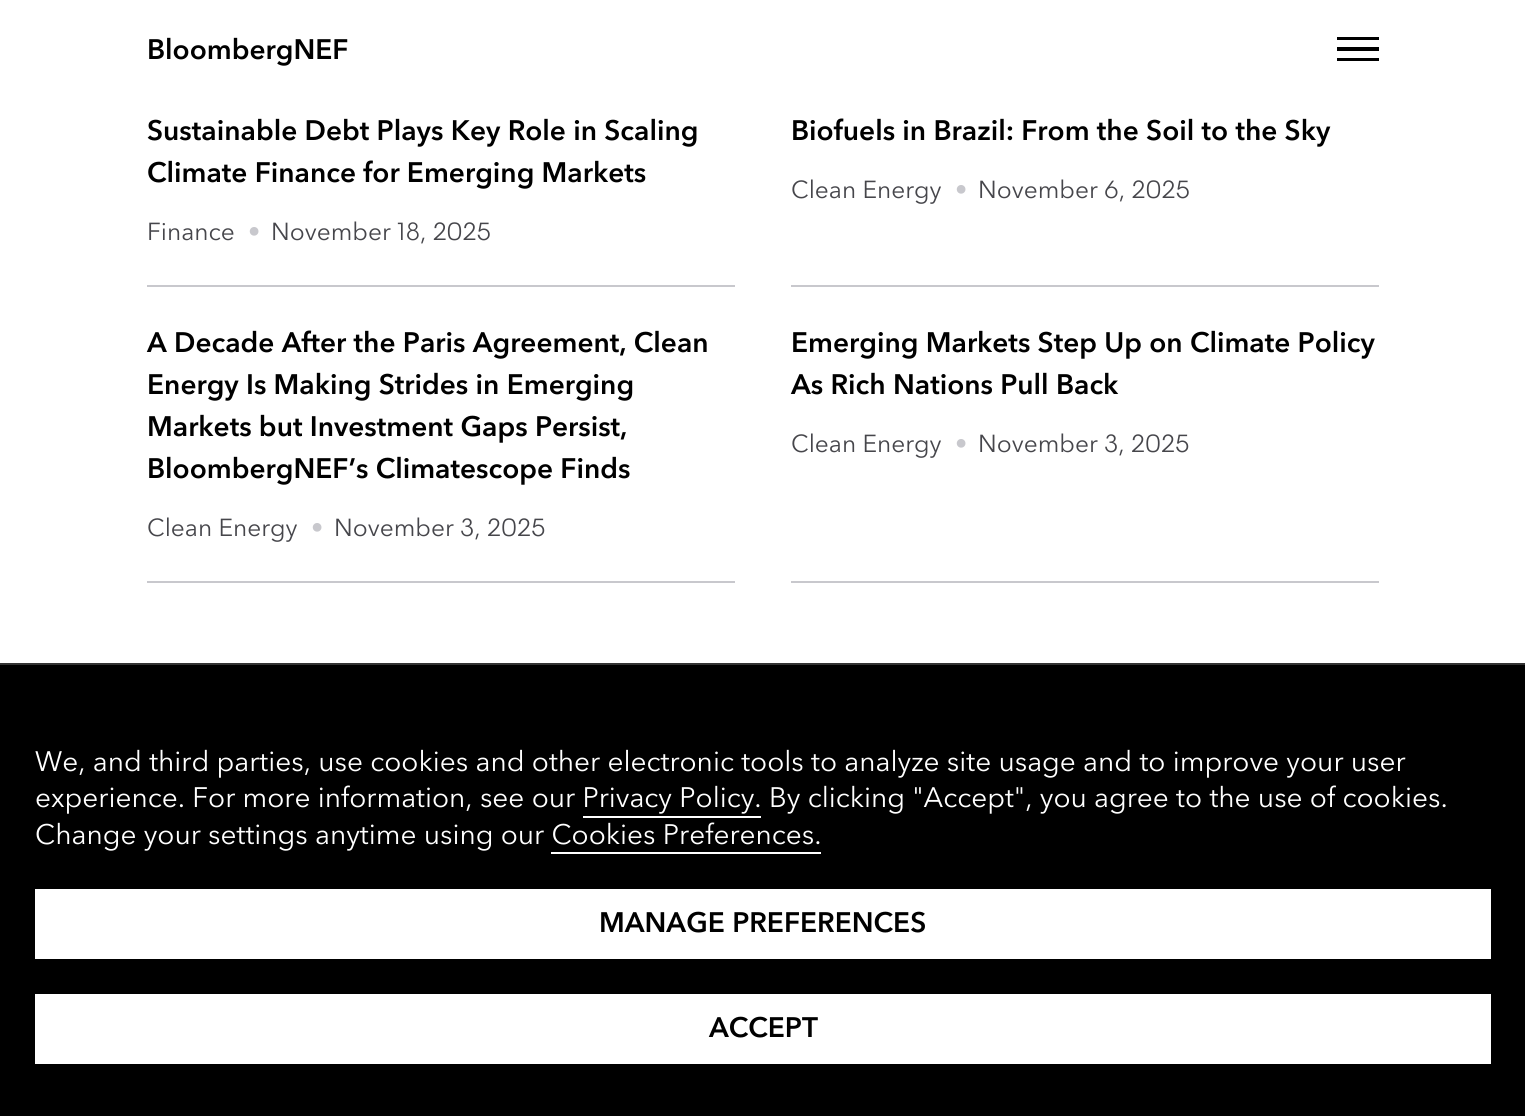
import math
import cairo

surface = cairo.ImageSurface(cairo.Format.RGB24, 1525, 1116)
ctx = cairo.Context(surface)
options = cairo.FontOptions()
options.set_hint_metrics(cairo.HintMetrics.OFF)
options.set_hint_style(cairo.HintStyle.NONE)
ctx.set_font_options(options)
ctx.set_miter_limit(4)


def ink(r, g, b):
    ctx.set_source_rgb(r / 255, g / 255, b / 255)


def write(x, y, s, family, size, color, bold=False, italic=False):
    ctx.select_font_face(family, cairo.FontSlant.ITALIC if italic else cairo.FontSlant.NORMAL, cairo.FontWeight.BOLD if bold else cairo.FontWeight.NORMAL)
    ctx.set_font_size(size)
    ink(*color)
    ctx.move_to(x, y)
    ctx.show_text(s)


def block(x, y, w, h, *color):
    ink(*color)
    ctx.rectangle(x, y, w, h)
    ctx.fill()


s1 = dict(family="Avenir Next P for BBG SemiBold", size=28, color=(0, 0, 0))
s2 = dict(family="Avenir Next P for BBG", size=24.5, color=(70, 70, 75))
s3 = dict(family="Avenir Next P for BBG", size=24.5, color=(200, 200, 205))
s4 = dict(family="Avenir Next P for BBG", size=28, color=(255, 255, 255))

ink(255, 255, 255)
ctx.paint()
write(147, 59, "BloombergNEF", **s1)
ctx.set_fill_rule(cairo.FillRule.EVEN_ODD)
ctx.new_path()
ctx.move_to(1337, 37)
ctx.line_to(1337, 40)
ctx.line_to(1379, 40)
ctx.line_to(1379, 37)
ctx.close_path()
ctx.move_to(1337, 47)
ctx.line_to(1337, 51)
ctx.line_to(1379, 51)
ctx.line_to(1379, 47)
ctx.close_path()
ctx.move_to(1337, 58)
ctx.line_to(1337, 61)
ctx.line_to(1379, 61)
ctx.line_to(1379, 58)
ctx.close_path()
ctx.fill()
block(147, 285, 588, 2, 200, 200, 205)
write(147, 140, "Sustainable Debt Plays Key Role in Scaling", **s1)
write(147, 182, "Climate Finance for Emerging Markets", **s1)
write(147, 240, "Finance", **s2)
write(248, 240, "•", **s3)
write(271, 240, "November 18, 2025", **s2)
block(791, 285, 588, 2, 200, 200, 205)
write(791, 140, "Biofuels in Brazil: From the Soil to the Sky", **s1)
write(791, 198, "Clean Energy", **s2)
write(955, 198, "•", **s3)
write(978, 198, "November 6, 2025", **s2)
block(147, 581, 588, 2, 200, 200, 205)
write(147, 352, "A Decade After the Paris Agreement, Clean", **s1)
write(147, 394, "Energy Is Making Strides in Emerging", **s1)
write(147, 436, "Markets but Investment Gaps Persist,", **s1)
write(147, 478, "BloombergNEF’s Climatescope Finds", **s1)
write(147, 536, "Clean Energy", **s2)
write(311, 536, "•", **s3)
write(334, 536, "November 3, 2025", **s2)
block(791, 581, 588, 2, 200, 200, 205)
write(791, 352, "Emerging Markets Step Up on Climate Policy", **s1)
write(791, 394, "As Rich Nations Pull Back", **s1)
write(791, 452, "Clean Energy", **s2)
write(955, 452, "•", **s3)
write(978, 452, "November 3, 2025", **s2)
block(0, 665, 1525, 451, 0, 0, 0)
block(0, 663, 1525, 2, 51, 51, 51)
write(35, 771, "We, and third parties, use cookies and other electronic tools to analyze site usage and to improve your user", **s4)
write(35, 807, "experience. For more information, see our Privacy Policy. By clicking \"Accept\", you agree to the use of cookies.", **s4)
block(583, 816, 178, 2, 255, 255, 255)
write(35, 844, "Change your settings anytime using our Cookies Preferences.", **s4)
block(551, 852, 270, 2, 255, 255, 255)
block(35, 889, 1456, 70, 255, 255, 255)
write(599, 932, "MANAGE PREFERENCES", **s1)
block(35, 994, 1456, 70, 255, 255, 255)
write(709, 1037, "ACCEPT", **s1)
surface.write_to_png("screenshot.png")
